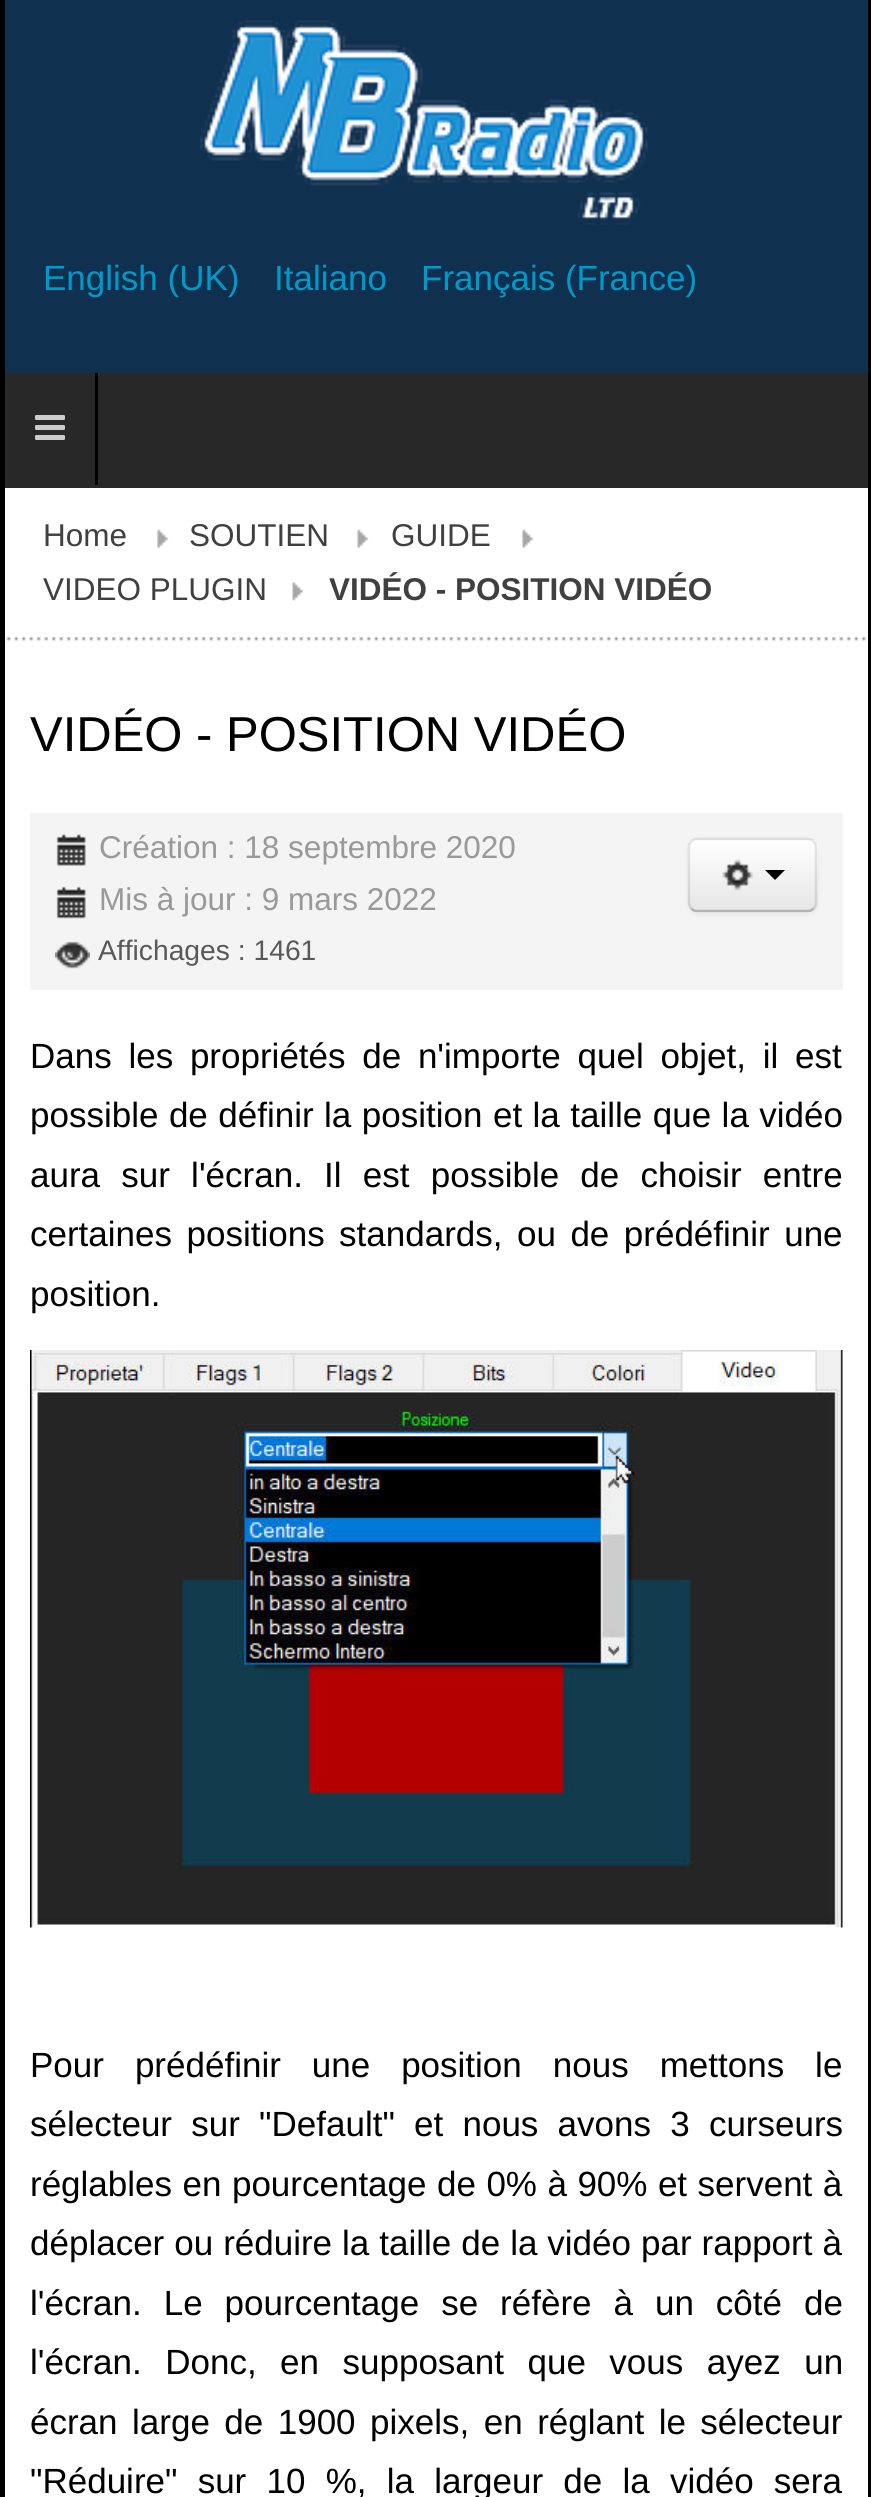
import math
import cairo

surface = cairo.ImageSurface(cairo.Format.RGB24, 871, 2497)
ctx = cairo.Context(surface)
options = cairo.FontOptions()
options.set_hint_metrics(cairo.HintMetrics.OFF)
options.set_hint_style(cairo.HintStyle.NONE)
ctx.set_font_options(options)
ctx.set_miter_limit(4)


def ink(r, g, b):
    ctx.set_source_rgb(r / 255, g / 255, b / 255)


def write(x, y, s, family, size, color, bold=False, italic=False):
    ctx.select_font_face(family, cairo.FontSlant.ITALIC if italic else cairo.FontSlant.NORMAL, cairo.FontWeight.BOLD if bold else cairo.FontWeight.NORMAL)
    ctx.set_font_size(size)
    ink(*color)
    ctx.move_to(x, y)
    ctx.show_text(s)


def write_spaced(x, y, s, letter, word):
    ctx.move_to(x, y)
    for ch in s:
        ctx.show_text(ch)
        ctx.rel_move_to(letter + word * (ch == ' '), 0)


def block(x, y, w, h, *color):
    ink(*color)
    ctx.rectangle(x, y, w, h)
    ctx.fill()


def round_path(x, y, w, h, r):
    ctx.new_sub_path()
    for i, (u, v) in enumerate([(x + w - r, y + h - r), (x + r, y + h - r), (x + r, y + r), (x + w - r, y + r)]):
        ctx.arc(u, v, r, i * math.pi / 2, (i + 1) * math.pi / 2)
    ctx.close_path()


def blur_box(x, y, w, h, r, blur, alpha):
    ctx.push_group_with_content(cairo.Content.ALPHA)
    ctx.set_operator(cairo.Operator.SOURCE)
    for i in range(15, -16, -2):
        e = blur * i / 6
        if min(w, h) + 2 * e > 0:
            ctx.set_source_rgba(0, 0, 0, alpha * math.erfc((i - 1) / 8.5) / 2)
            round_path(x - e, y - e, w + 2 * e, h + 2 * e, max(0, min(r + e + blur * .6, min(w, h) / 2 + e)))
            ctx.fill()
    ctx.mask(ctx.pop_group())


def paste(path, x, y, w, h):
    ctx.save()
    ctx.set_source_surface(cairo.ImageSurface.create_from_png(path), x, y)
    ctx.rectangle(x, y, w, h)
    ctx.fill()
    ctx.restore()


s1 = dict(family="Liberation Sans", size=35, color=(0, 154, 202))
s2 = dict(family="Liberation Sans", size=31.5, color=(64, 64, 64))
s3 = dict(family="Liberation Sans", size=31.5, color=(64, 64, 64), bold=True)
s4 = dict(family="Liberation Sans", size=49, color=(0, 0, 0))
s5 = dict(family="Liberation Sans", size=31.5, color=(153, 153, 153))
s6 = dict(family="Liberation Sans", size=28.25, color=(89, 89, 89))
s7 = dict(family="Liberation Sans", size=35, color=(0, 0, 0))

ink(0, 0, 0)
ctx.paint()
block(5, 488, 863, 2009, 255, 255, 255)
block(5, 0, 863, 373, 16, 48, 80)
paste("pic1.png", 200, 20, 448, 205)
write(43, 290, "English (UK)", **s1)
write(274, 290, "Italiano", **s1)
write(421, 290, "Français (France)", **s1)
block(5, 373, 863, 115, 40, 40, 40)
block(95, 373, 3, 112, 0, 0, 0)
paste("pic2.png", 35, 415, 30, 25)
paste("pic3.png", 6, 636, 860, 5)
paste("pic4.png", 157, 529, 12, 20)
write(43, 546, "Home", **s2)
paste("pic5.png", 357, 529, 12, 20)
write(189, 546, "SOUTIEN", **s2)
paste("pic4.png", 522, 529, 12, 20)
write(391, 546, "GUIDE", **s2)
paste("pic6.png", 292, 582, 12, 19)
write(43, 600, "VIDEO PLUGIN", **s2)
write(329, 600, "VIDÉO - POSITION VIDÉO", **s3)
write(30, 751, "VIDÉO - POSITION VIDÉO", **s4)
block(30, 813, 813, 177, 244, 244, 244)
paste("pic7.png", 56, 834, 30, 32)
write(99, 858, "Création : 18 septembre 2020", **s5)
paste("pic8.png", 56, 886, 30, 33)
write(99, 910, "Mis à jour : 9 mars 2022", **s5)
paste("pic9.png", 55, 941, 35, 28)
write(98, 960, "Affichages : 1461", **s6)
ink(0, 0, 0)
blur_box(688, 840, 130, 75, 10, 2.5, 0.05)
ink(245, 245, 245)
round_path(688, 838, 130, 75, 10)
ctx.fill()
ctx.save()
round_path(688, 838, 130, 75, 10)
ctx.clip()
gradient = cairo.LinearGradient(753, 840, 753, 910)
gradient.add_color_stop_rgba(0, 1, 1, 1, 1)
gradient.add_color_stop_rgba(1, 0.902, 0.902, 0.902, 1)
ctx.set_source(gradient)
ctx.rectangle(688, 840, 130, 70)
ctx.fill()
ctx.restore()
ctx.new_path()
ctx.move_to(813.5, 908.5)
ctx.curve_to(812, 910.5, 810, 911, 807.5, 911)
ctx.line_to(697.5, 911)
ctx.curve_to(695, 911, 693, 910.5, 691.5, 908.5)
ink(179, 179, 179)
ctx.set_line_width(2.5)
ctx.stroke()
ctx.new_path()
ctx.move_to(691.5, 908.5)
ctx.curve_to(689.5, 907, 689, 905, 689, 902.5)
ctx.line_to(689, 847.5)
ctx.curve_to(689, 845, 689.5, 843, 691.5, 841.5)
ctx.curve_to(693, 839.5, 695, 839, 697.5, 839)
ctx.line_to(807.5, 839)
ctx.curve_to(810, 839, 812, 839.5, 813.5, 841.5)
ctx.curve_to(815.5, 843, 816, 845, 816, 847.5)
ctx.line_to(816, 902.5)
ctx.curve_to(816, 905, 815.5, 907, 813.5, 908.5)
ctx.set_source_rgba(0, 0, 0, 0.1)
ctx.stroke()
paste("pic10.png", 722, 859, 32, 32)
ink(0, 0, 0)
ctx.new_path()
ctx.move_to(765, 870)
ctx.line_to(785, 870)
ctx.line_to(775, 880)
ctx.close_path()
ctx.fill()
ctx.set_font_size(35)
write_spaced(30, 1068, "Dans les propriétés de n'importe quel objet, il est", 0, 7)
write_spaced(30, 1127, "possible de définir la position et la taille que la vidéo", 0, 0.75)
write_spaced(30, 1187, "aura sur l'écran. Il est possible de choisir entre", 0, 11.5)
write_spaced(30, 1246, "certaines positions standards, ou de prédéfinir une", 0, 4.75)
write(30, 1306, "position.", **s7)
paste("pic11.png", 30, 1350, 813, 578)
write_spaced(30, 2077, "Pour prédéfinir une position nous mettons le", 0, 21.25)
write_spaced(30, 2136, "sélecteur sur \"Default\" et nous avons 3 curseurs", 0, 9.5)
write_spaced(30, 2196, "réglables en pourcentage de 0% à 90% et servent à", 0, 0.75)
write_spaced(30, 2255, "déplacer ou réduire la taille de la vidéo par rapport à", 0, 0.25)
write_spaced(30, 2315, "l'écran. Le pourcentage se réfère à un côté de", 0, 12.25)
write_spaced(30, 2374, "l'écran. Donc, en supposant que vous ayez un", 0, 13.75)
write_spaced(30, 2434, "écran large de 1900 pixels, en réglant le sélecteur", 0, 4.75)
write_spaced(30, 2493, "\"Réduire\" sur 10 %, la largeur de la vidéo sera", 0, 10.5)
surface.write_to_png("screenshot.png")
